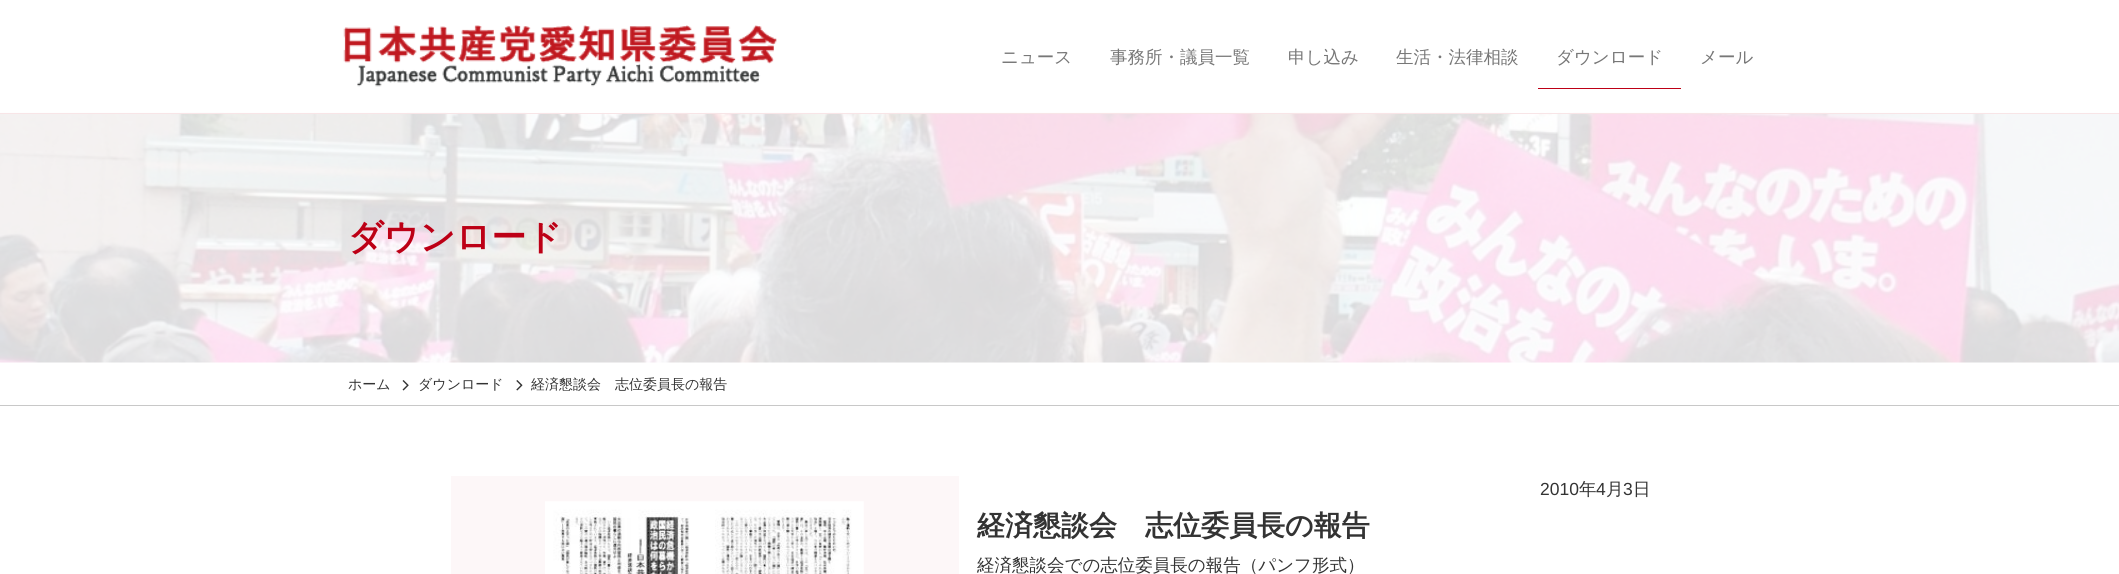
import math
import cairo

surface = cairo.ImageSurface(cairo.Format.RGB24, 2119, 574)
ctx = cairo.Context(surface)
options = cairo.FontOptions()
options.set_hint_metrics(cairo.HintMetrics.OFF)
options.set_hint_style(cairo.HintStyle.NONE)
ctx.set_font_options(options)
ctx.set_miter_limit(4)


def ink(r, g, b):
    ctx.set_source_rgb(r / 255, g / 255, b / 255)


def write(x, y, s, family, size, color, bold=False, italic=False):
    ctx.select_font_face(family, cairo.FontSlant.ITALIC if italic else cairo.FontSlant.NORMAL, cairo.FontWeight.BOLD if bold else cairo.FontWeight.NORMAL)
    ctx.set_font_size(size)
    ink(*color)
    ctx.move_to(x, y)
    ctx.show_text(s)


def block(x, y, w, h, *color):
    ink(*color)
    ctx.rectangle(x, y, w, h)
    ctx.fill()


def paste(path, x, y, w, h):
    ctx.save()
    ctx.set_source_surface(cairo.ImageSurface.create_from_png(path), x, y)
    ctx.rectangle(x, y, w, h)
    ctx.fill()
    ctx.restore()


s1 = dict(family="WenQuanYi Zen Hei Medium", size=17.5, color=(119, 119, 119))
s2 = dict(family="WenQuanYi Zen Hei", size=35, color=(189, 0, 22), bold=True)
s3 = dict(family="WenQuanYi Zen Hei Medium", size=14, color=(51, 51, 51))
s4 = dict(family="Liberation Sans", size=17.5, color=(51, 51, 51))
s5 = dict(family="WenQuanYi Zen Hei Medium", size=17.5, color=(51, 51, 51))
s6 = dict(family="WenQuanYi Zen Hei", size=28, color=(51, 51, 51), bold=True)

ink(255, 255, 255)
ctx.paint()
paste("pic2.png", 0, 112, 2119, 251)
ctx.set_source_rgba(1, 1, 1, 0.98)
ctx.rectangle(0, 112, 2119, 1)
ctx.fill()
block(0, 113, 2119, 1, 248, 229, 231)
paste("pic1.png", 343, 25, 434, 62)
write(1001, 63, "ニュース", **s1)
write(1110, 63, "事務所・議員一覧", **s1)
write(1288, 63, "申し込み", **s1)
write(1396, 63, "生活・法律相談", **s1)
block(1538, 88, 143, 1, 189, 0, 22)
write(1556, 63, "ダウンロード", **s1)
write(1700, 63, "メール", **s1)
write(348, 249, "ダウンロード", **s2)
block(0, 405, 2119, 1, 200, 200, 200)
write(348, 389, "ホーム", **s3)
paste("pic3.png", 402, 380, 7, 11)
write(418, 389, "ダウンロード", **s3)
paste("pic4.png", 516, 380, 7, 11)
write(531, 389, "経済懇談会　志位委員長の報告", **s3)
block(451, 476, 508, 98, 253, 247, 248)
paste("pic5.png", 545, 501, 319, 73)
write(1540, 495, "2010", **s4)
write(1579, 495, "年", **s5)
write(1596, 495, "4", **s4)
write(1606, 495, "月", **s5)
write(1623, 495, "3", **s4)
write(1633, 495, "日", **s5)
write(977, 535, "経済懇談会　志位委員長の報告", **s6)
write(977, 571, "経済懇談会での志位委員長の報告（パンフ形式）", **s5)
surface.write_to_png("screenshot.png")
